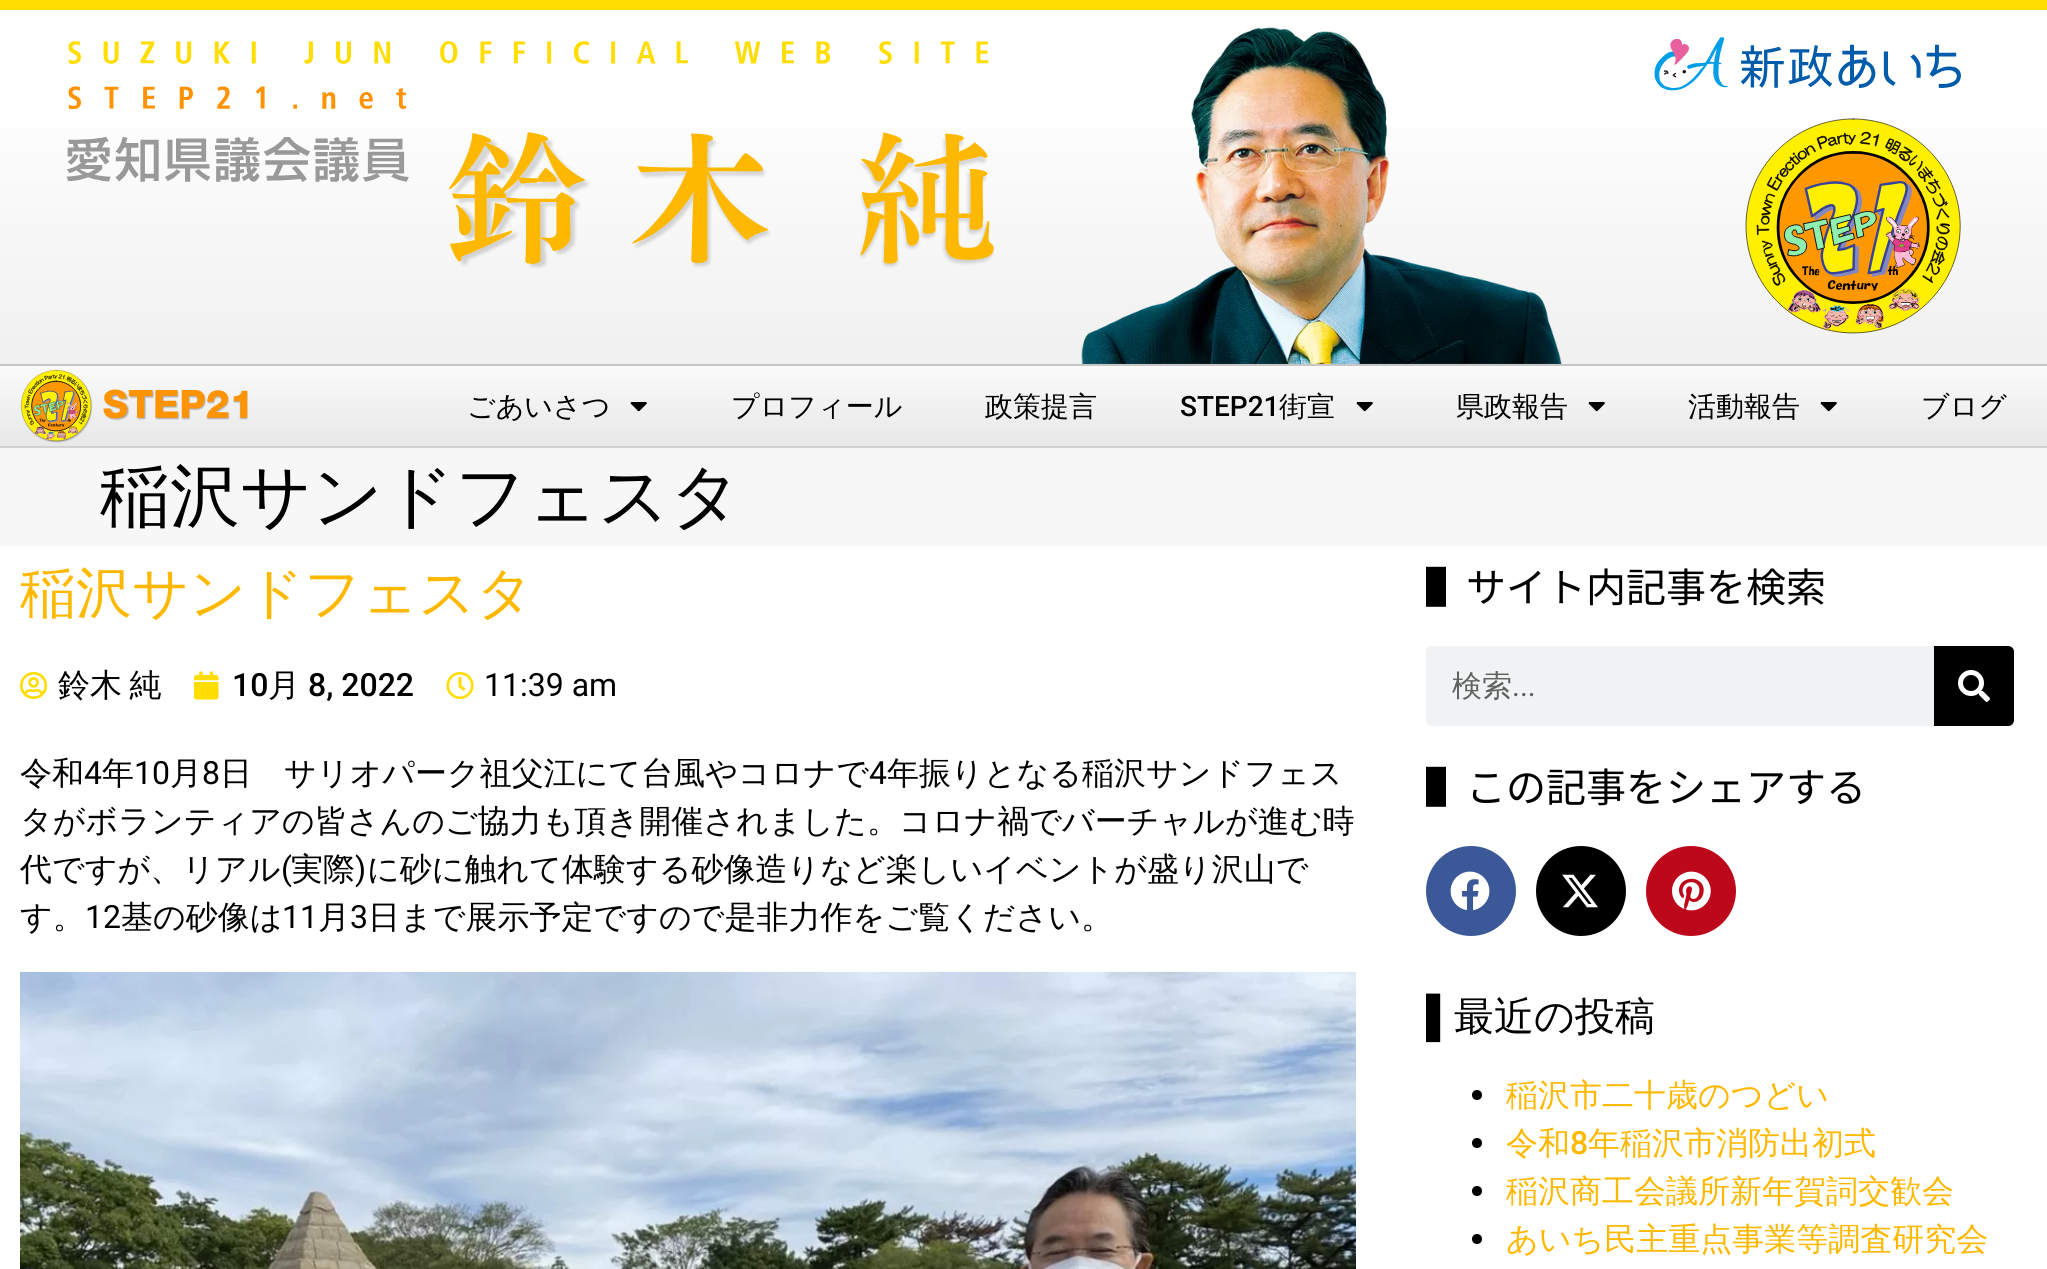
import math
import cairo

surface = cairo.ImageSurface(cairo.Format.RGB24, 2047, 1269)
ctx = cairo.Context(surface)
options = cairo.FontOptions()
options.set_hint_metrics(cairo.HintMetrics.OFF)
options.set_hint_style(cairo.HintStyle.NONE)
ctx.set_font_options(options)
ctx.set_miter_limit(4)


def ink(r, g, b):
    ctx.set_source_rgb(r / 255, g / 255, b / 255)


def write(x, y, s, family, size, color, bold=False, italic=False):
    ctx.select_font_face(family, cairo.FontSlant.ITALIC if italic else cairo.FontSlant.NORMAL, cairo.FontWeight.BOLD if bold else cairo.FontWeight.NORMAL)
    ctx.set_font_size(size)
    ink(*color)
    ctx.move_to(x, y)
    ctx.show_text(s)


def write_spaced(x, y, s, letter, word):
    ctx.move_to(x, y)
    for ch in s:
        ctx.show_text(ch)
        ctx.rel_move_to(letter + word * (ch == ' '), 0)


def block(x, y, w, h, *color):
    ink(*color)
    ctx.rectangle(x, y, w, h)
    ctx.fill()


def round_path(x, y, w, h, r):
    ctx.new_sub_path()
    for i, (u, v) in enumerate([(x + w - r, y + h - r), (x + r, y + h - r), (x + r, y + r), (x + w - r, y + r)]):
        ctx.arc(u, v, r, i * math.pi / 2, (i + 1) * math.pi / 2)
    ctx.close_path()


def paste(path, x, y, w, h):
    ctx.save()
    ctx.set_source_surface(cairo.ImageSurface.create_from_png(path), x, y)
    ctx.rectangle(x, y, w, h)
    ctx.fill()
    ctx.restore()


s1 = dict(family="WenQuanYi Zen Hei Medium", size=28, color=(0, 0, 0))
s2 = dict(family="Roboto Medium", size=28, color=(0, 0, 0))
s3 = dict(family="WenQuanYi Zen Hei Medium", size=70, color=(0, 0, 0))
s4 = dict(family="WenQuanYi Zen Hei Medium", size=56, color=(255, 184, 0))
s5 = dict(family="Roboto Medium", size=32, color=(0, 0, 0))
s6 = dict(family="WenQuanYi Zen Hei Medium", size=32, color=(0, 0, 0))
s7 = dict(family="Roboto", size=32, color=(0, 0, 0))
s8 = dict(family="Noto Sans JP", size=40, color=(0, 0, 0))
s9 = dict(family="WenQuanYi Zen Hei Medium", size=30, color=(96, 97, 97))
s10 = dict(family="Roboto", size=30, color=(96, 97, 97))
s11 = dict(family="Liberation Sans", size=40, color=(0, 0, 0))
s12 = dict(family="WenQuanYi Zen Hei Medium", size=40, color=(0, 0, 0))
s13 = dict(family="WenQuanYi Zen Hei Medium", size=32, color=(255, 184, 0))
s14 = dict(family="Roboto Medium", size=32, color=(255, 184, 0))

ink(255, 255, 255)
ctx.paint()
gradient = cairo.LinearGradient(1024, 10, 1024, 364)
gradient.add_color_stop_rgba(0.2, 1, 1, 1, 1)
gradient.add_color_stop_rgba(0.95, 0.945, 0.945, 0.945, 1)
ctx.set_source(gradient)
ctx.rectangle(0, 128, 2047, 236)
ctx.fill()
block(0, 0, 2047, 10, 255, 221, 0)
paste("pic1.png", 1081, 27, 481, 337)
paste("pic2.png", 66, 41, 928, 228)
paste("pic3.png", 1654, 37, 307, 297)
gradient = cairo.LinearGradient(1024, 366, 1024, 446)
gradient.add_color_stop_rgba(0, 0.98, 0.98, 0.98, 1)
gradient.add_color_stop_rgba(1, 0.91, 0.91, 0.91, 1)
ctx.set_source(gradient)
ctx.rectangle(0, 366, 2047, 80)
ctx.fill()
block(0, 364, 2047, 2, 197, 197, 197)
block(0, 446, 2047, 2, 210, 210, 210)
paste("pic4.png", 20, 369, 228, 74)
write(467, 416, "ごあいさつ", **s1)
paste("pic5.png", 630, 402, 17, 10)
write(731, 416, "プロフィール", **s1)
write(985, 416, "政策提言", **s1)
write(1180, 416, "STEP21", **s2)
write(1279, 416, "街宣", **s1)
paste("pic5.png", 1356, 402, 17, 10)
write(1456, 416, "県政報告", **s1)
paste("pic5.png", 1588, 402, 17, 10)
write(1688, 416, "活動報告", **s1)
paste("pic5.png", 1820, 402, 17, 10)
write(1921, 416, "ブログ", **s1)
block(0, 448, 2047, 98, 247, 247, 247)
write(100, 520, "稲沢サンドフェスタ", **s3)
write(20, 612, "稲沢サンドフェスタ", **s4)
paste("pic6.png", 20, 671, 28, 29)
ctx.set_font_size(32)
ink(0, 0, 0)
write_spaced(58, 696, "鈴木 純", 0, -2)
paste("pic7.png", 194, 671, 25, 29)
write(232, 696, "10", **s5)
write(268, 696, "月", **s6)
write(308, 696, "8, 2022", **s5)
paste("pic8.png", 446, 672, 28, 27)
write(484, 696, "11:39 am", **s7)
write(20, 784, "令和", **s6)
write(84, 784, "4", **s7)
write(102, 784, "年", **s6)
write(134, 784, "10", **s7)
write(170, 784, "月", **s6)
write(202, 784, "8", **s7)
write(220, 784, "日　サリオパーク祖父江にて台風やコロナで", **s6)
write(869, 784, "4", **s7)
write(887, 784, "年振りとなる稲沢サンドフェス", **s6)
write(20, 832, "タがボランティアの皆さんのご協力も頂き開催されました。コロナ禍でバーチャルが進む時", **s6)
write(20, 880, "代ですが、リアル", **s6)
write(281, 880, "(", **s7)
write(291, 880, "実際", **s6)
write(355, 880, ")", **s7)
write(367, 880, "に砂に触れて体験する砂像造りなど楽しいイベントが盛り沢山で", **s6)
write(20, 928, "す。", **s6)
write(85, 928, "12", **s7)
write(121, 928, "基の砂像は", **s6)
write(282, 928, "11", **s7)
write(318, 928, "月", **s6)
write(350, 928, "3", **s7)
write(368, 928, "日まで展示予定ですので是非力作をご覧ください。", **s6)
paste("pic9.png", 20, 972, 1336, 297)
write(1426, 602, "▌サイト内記事を検索", **s8)
ink(241, 242, 243)
round_path(1426, 646, 588, 80, 6)
ctx.fill()
write(1452, 696, "検索", **s9)
write(1512, 696, "...", **s10)
ink(0, 0, 0)
ctx.new_path()
ctx.move_to(1934, 646)
ctx.line_to(2008, 646)
ctx.curve_to(2011.5, 646, 2014, 648.5, 2014, 652)
ctx.line_to(2014, 720)
ctx.curve_to(2014, 723.5, 2011.5, 726, 2008, 726)
ctx.line_to(1934, 726)
ctx.close_path()
ctx.fill()
paste("pic10.png", 1958, 670, 32, 32)
write(1426, 802, "▌この記事をシェアする", **s8)
ink(59, 89, 152)
ctx.new_path()
ctx.arc(1471, 891, 45, 0, 2 * math.pi)
ctx.fill()
paste("pic11.png", 1450, 871, 40, 40)
ink(0, 0, 0)
ctx.arc(1581, 891, 45, 0, 2 * math.pi)
ctx.fill()
paste("pic12.png", 1562, 874, 36, 34)
ink(189, 8, 28)
ctx.arc(1691, 891, 45, 0, 2 * math.pi)
ctx.fill()
paste("pic13.png", 1672, 871, 39, 40)
write(1426, 1030, "▌", **s11)
write(1454, 1030, "最近の投稿", **s12)
ctx.new_path()
ctx.arc(1477, 1095, 5, 0, 2 * math.pi)
ctx.fill()
write(1506, 1106, "稲沢市二十歳のつどい", **s13)
ink(0, 0, 0)
ctx.new_path()
ctx.arc(1477, 1143, 5, 0, 2 * math.pi)
ctx.fill()
write(1506, 1154, "令和", **s13)
write(1570, 1154, "8", **s14)
write(1588, 1154, "年稲沢市消防出初式", **s13)
ink(0, 0, 0)
ctx.new_path()
ctx.arc(1477, 1191, 5, 0, 2 * math.pi)
ctx.fill()
write(1506, 1202, "稲沢商工会議所新年賀詞交歓会", **s13)
ink(0, 0, 0)
ctx.new_path()
ctx.arc(1477, 1239, 5, 0, 2 * math.pi)
ctx.fill()
write(1506, 1250, "あいち民主重点事業等調査研究会", **s13)
surface.write_to_png("screenshot.png")
